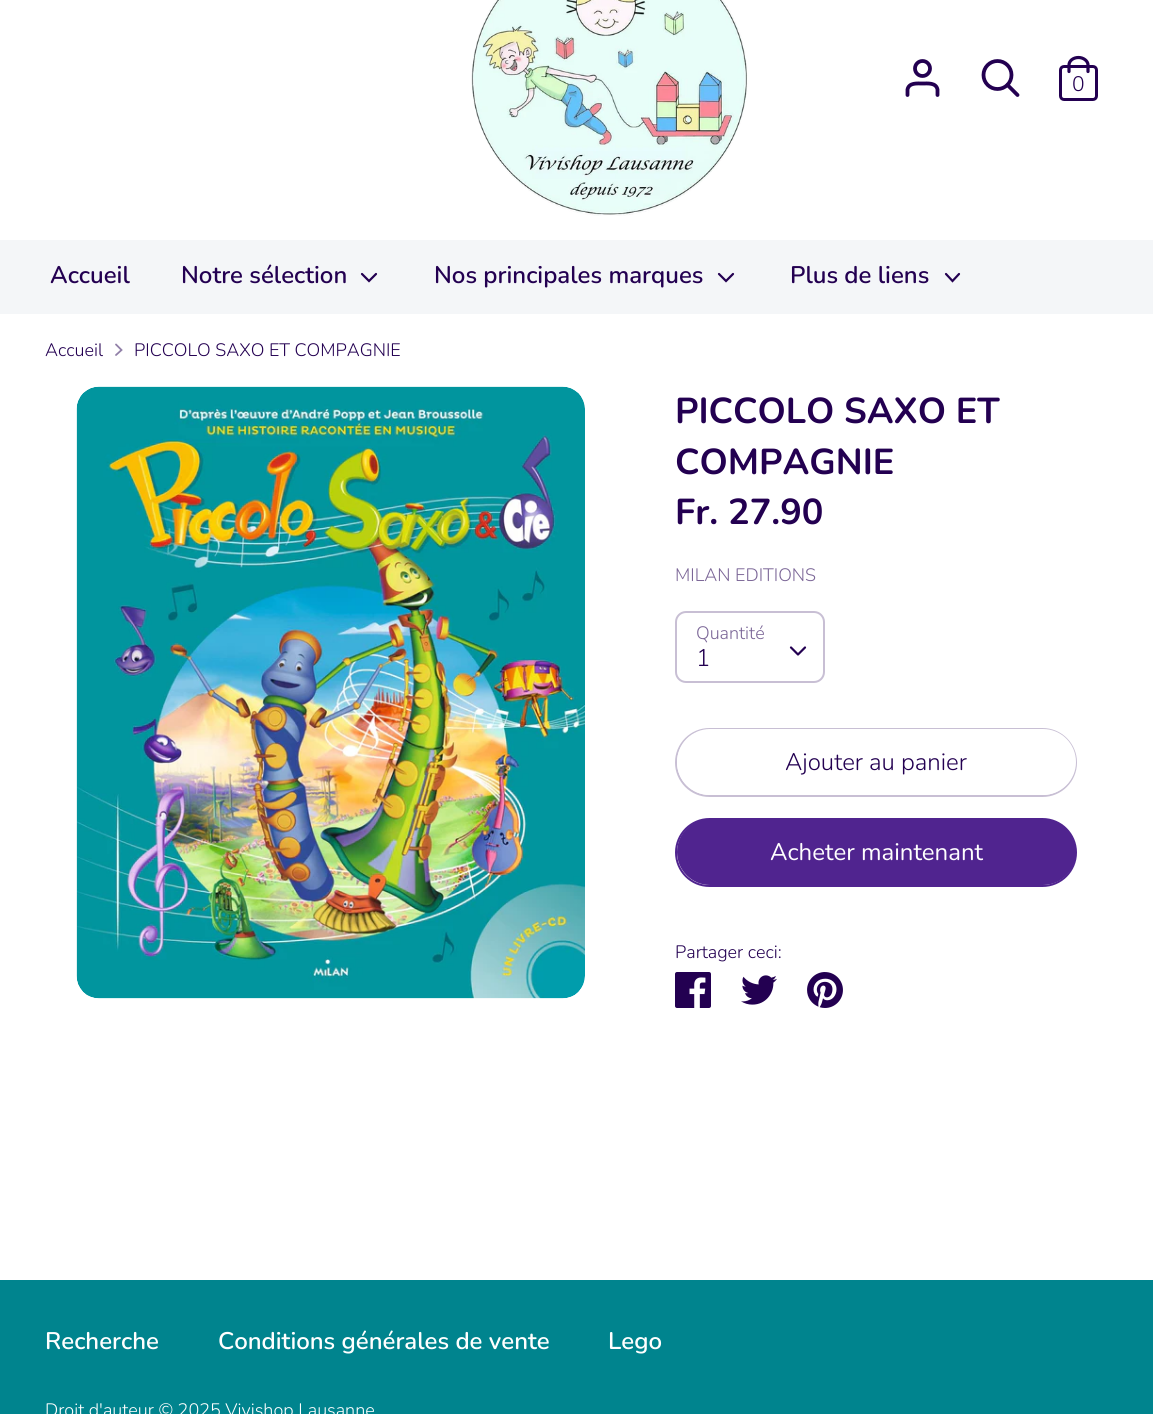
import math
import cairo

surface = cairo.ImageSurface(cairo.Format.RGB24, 1153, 1414)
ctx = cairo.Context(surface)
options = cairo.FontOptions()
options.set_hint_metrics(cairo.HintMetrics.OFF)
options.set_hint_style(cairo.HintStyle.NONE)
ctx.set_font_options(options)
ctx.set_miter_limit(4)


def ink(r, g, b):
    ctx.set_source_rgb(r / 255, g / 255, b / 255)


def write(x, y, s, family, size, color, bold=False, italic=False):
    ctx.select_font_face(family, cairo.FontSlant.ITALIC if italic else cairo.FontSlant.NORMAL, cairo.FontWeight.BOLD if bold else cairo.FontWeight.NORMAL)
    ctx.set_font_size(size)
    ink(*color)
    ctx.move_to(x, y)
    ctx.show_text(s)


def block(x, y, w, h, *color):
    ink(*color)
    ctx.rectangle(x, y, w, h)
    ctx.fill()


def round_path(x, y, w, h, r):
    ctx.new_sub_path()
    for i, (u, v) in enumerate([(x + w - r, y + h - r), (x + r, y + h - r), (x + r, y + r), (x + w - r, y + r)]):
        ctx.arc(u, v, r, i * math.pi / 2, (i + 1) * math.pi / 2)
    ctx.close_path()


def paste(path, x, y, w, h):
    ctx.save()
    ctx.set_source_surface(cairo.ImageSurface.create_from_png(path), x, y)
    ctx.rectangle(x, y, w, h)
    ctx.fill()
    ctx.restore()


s1 = dict(family="Nunito Light", size=21, color=(35, 0, 81))
s2 = dict(family="Nunito SemiBold", size=24, color=(35, 0, 81))
s3 = dict(family="Nunito Light", size=18, color=(35, 0, 81))
s4 = dict(family="Nunito", size=36, color=(35, 0, 81), bold=True)
s5 = dict(family="Nunito Light", size=18, color=(123, 102, 151))
s6 = dict(family="Nunito Light", size=24, color=(35, 0, 81))
s7 = dict(family="Nunito", size=24, color=(255, 255, 255))
s8 = dict(family="Nunito SemiBold", size=24, color=(255, 255, 255))
s9 = dict(family="Nunito Light", size=18, color=(255, 255, 255))

ink(255, 255, 255)
ctx.paint()
paste("pic1.png", 471, 0, 277, 216)
ctx.new_path()
ctx.move_to(937.5, 95)
ctx.line_to(937.5, 89.5)
ctx.curve_to(936, 82.5, 928, 83.5, 922.5, 83.5)
ctx.curve_to(917, 83.5, 909, 82.5, 907.5, 89.5)
ctx.line_to(907.5, 95)
ink(35, 0, 81)
ctx.set_line_width(3.8)
ctx.set_line_cap(cairo.LineCap.ROUND)
ctx.stroke()
ctx.arc(922.5, 68.5, 7.5, 0, 2 * math.pi)
ctx.set_line_cap(cairo.LineCap.BUTT)
ctx.stroke()
ctx.arc(997.5, 75, 14, 0, 2 * math.pi)
ctx.stroke()
ctx.new_path()
ctx.move_to(1017.5, 95)
ctx.line_to(1007.5, 85)
ctx.set_line_cap(cairo.LineCap.ROUND)
ctx.stroke()
round_path(1060.5, 66.5, 36, 33, 3.5)
ctx.set_line_width(3)
ctx.set_line_cap(cairo.LineCap.BUTT)
ctx.stroke()
ctx.new_path()
ctx.move_to(1069, 71.5)
ctx.line_to(1069, 65)
ctx.curve_to(1069, 61, 1073, 57.5, 1078.5, 57.5)
ctx.curve_to(1083.5, 57.5, 1088, 61, 1088, 65)
ctx.line_to(1088, 71.5)
ctx.set_line_width(3.2)
ctx.set_line_cap(cairo.LineCap.ROUND)
ctx.stroke()
write(1072, 91, "0", **s1)
block(0, 240, 1153, 74, 244, 246, 248)
write(50, 283, "Accueil", **s2)
write(181, 283, "Notre sélection", **s2)
ctx.new_path()
ctx.move_to(362, 274)
ctx.line_to(369, 281)
ctx.line_to(376, 274)
ctx.set_line_width(2.2)
ctx.stroke()
write(434, 283, "Nos principales marques", **s2)
ctx.new_path()
ctx.move_to(719, 274)
ctx.line_to(726, 281)
ctx.line_to(733, 274)
ctx.stroke()
write(790, 283, "Plus de liens", **s2)
ctx.new_path()
ctx.move_to(946, 274)
ctx.line_to(952.5, 281)
ctx.line_to(959, 274)
ctx.stroke()
write(45, 356, "Accueil", **s3)
ctx.new_path()
ctx.move_to(116, 355)
ctx.line_to(121.5, 350)
ctx.line_to(116, 344.5)
ink(145, 128, 168)
ctx.set_line_width(1.8)
ctx.stroke()
write(134, 356, "PICCOLO SAXO ET COMPAGNIE", **s3)
paste("pic2.png", 76, 386, 509, 613)
write(675, 423, "PICCOLO SAXO ET", **s4)
write(675, 474, "COMPAGNIE", **s4)
write(675, 524, "Fr. 27.90", **s4)
write(675, 581, "MILAN EDITIONS", **s5)
round_path(676, 612, 148, 70, 10)
ink(200, 191, 212)
ctx.set_line_width(2)
ctx.set_line_cap(cairo.LineCap.BUTT)
ctx.stroke()
write(696, 639, "Quantité", **s5)
write(696, 666, "1", **s6)
ctx.new_path()
ctx.move_to(791, 647.5)
ctx.line_to(798, 654.5)
ctx.line_to(805, 647.5)
ctx.set_line_width(2.2)
ctx.set_line_cap(cairo.LineCap.ROUND)
ctx.set_line_join(cairo.LineJoin.ROUND)
ctx.stroke()
round_path(676, 729, 400, 67, 33.5)
ink(200, 191, 212)
ctx.set_line_width(2)
ctx.set_line_cap(cairo.LineCap.BUTT)
ctx.set_line_join(cairo.LineJoin.MITER)
ctx.stroke()
ink(255, 255, 255)
round_path(677, 729, 399, 66, 33)
ctx.fill()
write(785, 770, "Ajouter au panier", **s6)
round_path(676, 819, 400, 67, 33.5)
ink(80, 36, 143)
ctx.stroke()
round_path(677, 819, 399, 66, 33)
ctx.fill()
write(770, 860, "Acheter maintenant", **s7)
write(675, 958, "Partager ceci:", **s3)
paste("pic3.png", 675, 972, 36, 36)
paste("pic4.png", 741, 975, 36, 30)
paste("pic5.png", 807, 972, 36, 36)
block(0, 1280, 1153, 134, 0, 132, 142)
write(45, 1349, "Recherche", **s8)
write(218, 1349, "Conditions générales de vente", **s8)
write(608, 1349, "Lego", **s8)
write(45, 1416, "Droit d'auteur © 2025 Vivishop Lausanne", **s9)
surface.write_to_png("screenshot.png")
